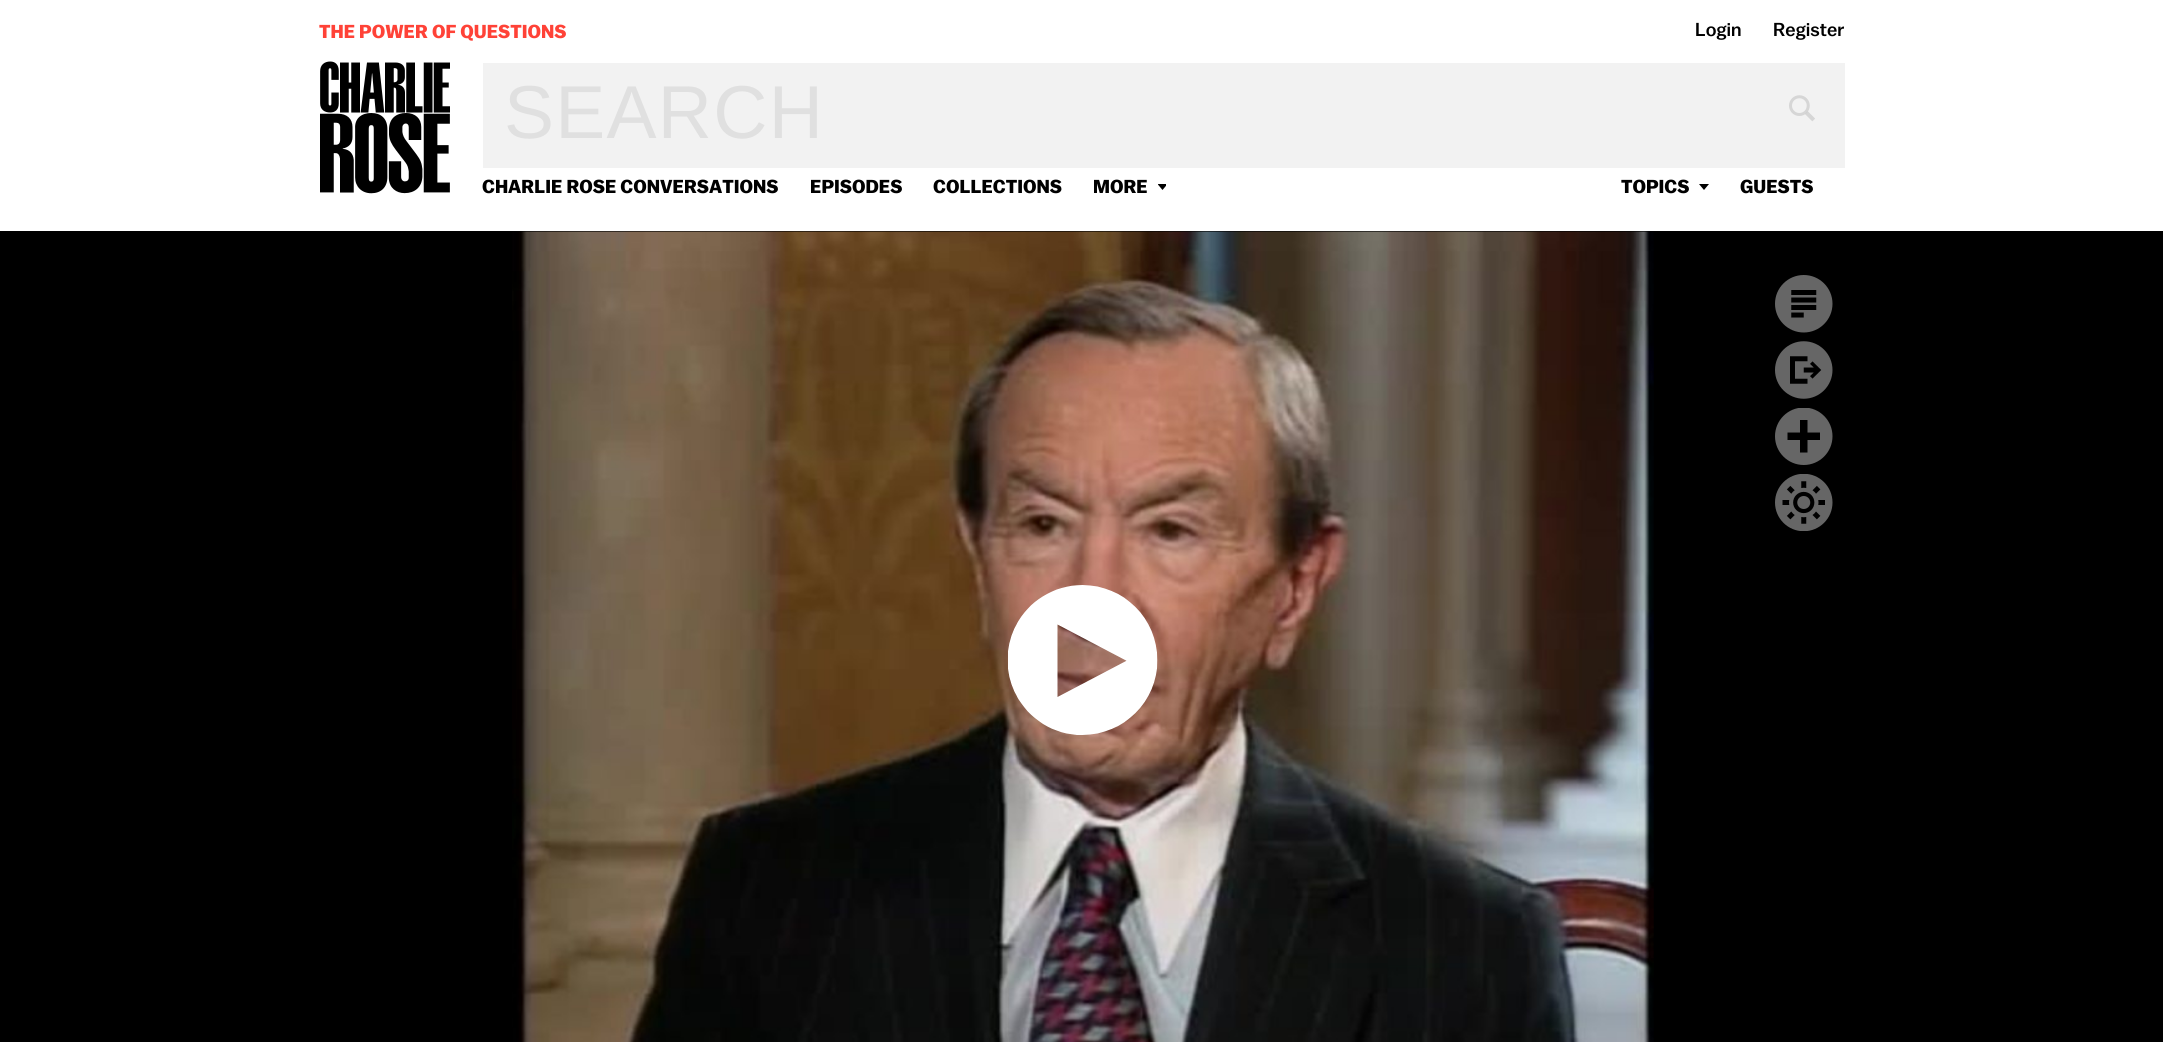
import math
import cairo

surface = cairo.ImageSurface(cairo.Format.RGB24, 2163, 1042)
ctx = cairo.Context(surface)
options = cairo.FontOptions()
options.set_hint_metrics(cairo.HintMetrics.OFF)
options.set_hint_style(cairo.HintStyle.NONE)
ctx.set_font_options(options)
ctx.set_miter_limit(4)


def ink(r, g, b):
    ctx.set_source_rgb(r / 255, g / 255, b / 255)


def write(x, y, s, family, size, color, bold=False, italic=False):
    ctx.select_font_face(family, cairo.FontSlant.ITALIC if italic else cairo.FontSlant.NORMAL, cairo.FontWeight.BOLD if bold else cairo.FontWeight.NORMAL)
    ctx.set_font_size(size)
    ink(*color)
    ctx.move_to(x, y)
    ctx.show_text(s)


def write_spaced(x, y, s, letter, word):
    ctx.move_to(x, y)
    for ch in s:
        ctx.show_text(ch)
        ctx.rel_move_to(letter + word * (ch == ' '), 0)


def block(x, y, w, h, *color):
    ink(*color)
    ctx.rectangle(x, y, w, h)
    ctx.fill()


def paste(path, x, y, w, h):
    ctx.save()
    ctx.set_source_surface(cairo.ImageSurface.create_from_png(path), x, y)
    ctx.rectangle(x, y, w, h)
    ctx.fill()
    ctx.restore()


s1 = dict(family="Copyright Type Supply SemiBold", size=18.75, color=(255, 66, 55))
s2 = dict(family="Copyright Type Supply Medium", size=18.75, color=(0, 0, 0))
s3 = dict(family="Copyright Type Supply SemiBold", size=18.75, color=(0, 0, 0))

ink(255, 255, 255)
ctx.paint()
write(319, 38, "THE POWER OF QUESTIONS", **s1)
write(1695, 36, "Login", **s2)
write(1773, 36, "Register", **s2)
write(482, 193, "CHARLIE ROSE CONVERSATIONS", **s3)
write(810, 193, "EPISODES", **s3)
write(933, 193, "COLLECTIONS", **s3)
write(1093, 193, "MORE", **s3)
ctx.save()
ctx.rectangle(1158, 184, 8, 6)
ctx.clip()
ctx.new_path()
ctx.move_to(1157.5, 184)
ctx.line_to(1167.5, 184)
ctx.line_to(1162.5, 190)
ctx.close_path()
ctx.fill()
ctx.restore()
write(1621, 193, "TOPICS", **s3)
ctx.new_path()
ctx.move_to(1699, 184)
ctx.line_to(1709, 184)
ctx.line_to(1704, 190)
ctx.close_path()
ctx.fill()
write(1740, 193, "GUESTS", **s3)
paste("pic1.png", 320, 61, 130, 133)
block(483, 63, 1362, 105, 242, 242, 242)
ctx.select_font_face("Liberation Sans")
ctx.set_font_size(75)
ink(224, 224, 224)
write_spaced(504, 138, "SEARCH", 1.25, 0)
paste("pic2.png", 1789, 95, 26, 27)
block(0, 231, 2163, 811, 0, 0, 0)
paste("pic3.png", 512, 231, 1142, 811)
paste("pic4.png", 1775, 275, 58, 58)
paste("pic5.png", 1775, 341, 58, 58)
paste("pic6.png", 1775, 408, 58, 57)
paste("pic7.png", 1775, 474, 58, 57)
surface.write_to_png("screenshot.png")
